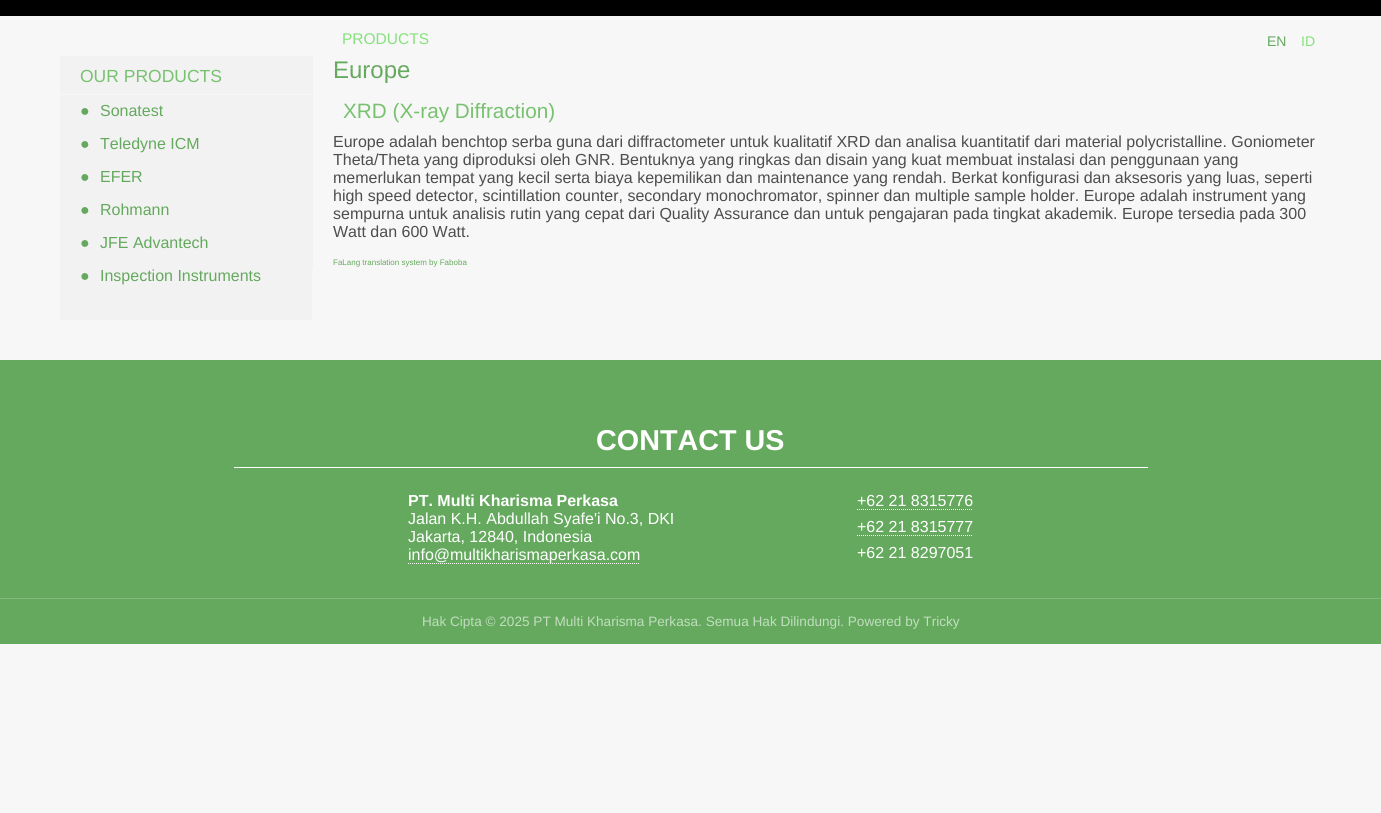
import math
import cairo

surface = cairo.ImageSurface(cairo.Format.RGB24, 1381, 813)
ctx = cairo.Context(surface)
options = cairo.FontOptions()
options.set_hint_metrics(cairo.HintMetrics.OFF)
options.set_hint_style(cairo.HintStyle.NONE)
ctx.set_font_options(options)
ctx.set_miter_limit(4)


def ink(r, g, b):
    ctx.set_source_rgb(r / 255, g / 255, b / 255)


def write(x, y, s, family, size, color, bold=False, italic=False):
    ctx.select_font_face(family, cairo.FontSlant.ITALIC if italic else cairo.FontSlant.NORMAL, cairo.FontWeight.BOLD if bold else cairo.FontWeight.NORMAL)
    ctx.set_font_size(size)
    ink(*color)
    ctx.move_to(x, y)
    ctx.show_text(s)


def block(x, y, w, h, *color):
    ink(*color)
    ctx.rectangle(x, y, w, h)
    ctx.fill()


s1 = dict(family="Liberation Sans", size=24, color=(100, 169, 93))
s2 = dict(family="Liberation Sans", size=15.5, color=(133, 225, 124))
s3 = dict(family="Liberation Sans", size=14, color=(100, 169, 93))
s4 = dict(family="Liberation Sans", size=14, color=(133, 225, 124))
s5 = dict(family="Liberation Sans", size=17.5, color=(119, 193, 111))
s6 = dict(family="Liberation Sans", size=16, color=(100, 169, 93))
s7 = dict(family="Liberation Sans", size=20.75, color=(119, 193, 111))
s8 = dict(family="Liberation Sans", size=16, color=(77, 77, 77))
s9 = dict(family="Liberation Sans", size=8, color=(100, 169, 93))
s10 = dict(family="Liberation Sans", size=28.75, color=(255, 255, 255), bold=True)
s11 = dict(family="Liberation Sans", size=16, color=(255, 255, 255), bold=True)
s12 = dict(family="Liberation Sans", size=16, color=(255, 255, 255))
s13 = dict(family="Liberation Sans", size=13.6, color=(193, 221, 190))

ink(247, 247, 247)
ctx.paint()
block(0, 0, 1381, 16, 0, 0, 0)
write(333, 78, "Europe", **s1)
ctx.set_source_rgba(1, 1, 1, 0.2)
ctx.rectangle(335, 68, 75, 1)
ctx.fill()
write(342, 44, "PRODUCTS", **s2)
write(1267, 46, "EN", **s3)
write(1301, 46, "ID", **s4)
block(60, 56, 252, 264, 242, 242, 242)
block(60, 94, 252, 1, 247, 247, 247)
write(80, 82, "OUR PRODUCTS", **s5)
write(80, 116, "●", **s6)
write(100, 116, "Sonatest", **s6)
write(80, 149, "●", **s6)
write(100, 149, "Teledyne ICM", **s6)
write(80, 182, "●", **s6)
write(100, 182, "EFER", **s6)
write(80, 215, "●", **s6)
write(100, 215, "Rohmann", **s6)
write(80, 248, "●", **s6)
write(100, 248, "JFE Advantech", **s6)
write(80, 281, "●", **s6)
write(100, 281, "Inspection Instruments", **s6)
block(312, 56, 1, 213, 242, 242, 242)
write(343, 118, "XRD (X-ray Diffraction)", **s7)
write(333, 147, "Europe adalah benchtop serba guna dari diffractometer untuk kualitatif XRD dan analisa kuantitatif dari material polycristalline. Goniometer", **s8)
write(333, 165, "Theta/Theta yang diproduksi oleh GNR. Bentuknya yang ringkas dan disain yang kuat membuat instalasi dan penggunaan yang", **s8)
write(333, 183, "memerlukan tempat yang kecil serta biaya kepemilikan dan maintenance yang rendah. Berkat konfigurasi dan aksesoris yang luas, seperti", **s8)
write(333, 201, "high speed detector, scintillation counter, secondary monochromator, spinner dan multiple sample holder. Europe adalah instrument yang", **s8)
write(333, 219, "sempurna untuk analisis rutin yang cepat dari Quality Assurance dan untuk pengajaran pada tingkat akademik. Europe tersedia pada 300", **s8)
write(333, 237, "Watt dan 600 Watt.", **s8)
write(333, 265, "FaLang translation system by Faboba", **s9)
block(0, 360, 1381, 238, 100, 169, 93)
block(234, 467, 914, 1, 255, 255, 255)
write(596, 450, "CONTACT US", **s10)
write(408, 506, "PT. Multi Kharisma Perkasa", **s11)
write(408, 524, "Jalan K.H. Abdullah Syafe'i No.3, DKI", **s12)
write(408, 542, "Jakarta, 12840, Indonesia", **s12)
ctx.new_path()
ctx.move_to(408, 563.5)
ctx.line_to(640, 563.5)
ctx.set_line_width(1)
ctx.set_dash([1, 1])
ctx.stroke()
write(408, 560, "info@multikharismaperkasa.com", **s12)
write(857, 506, "+62 21 8315776", **s12)
ctx.new_path()
ctx.move_to(857, 509.5)
ctx.line_to(973, 509.5)
ctx.stroke()
write(857, 532, "+62 21 8315777", **s12)
ctx.new_path()
ctx.move_to(857, 535.5)
ctx.line_to(973, 535.5)
ctx.stroke()
write(857, 558, "+62 21 8297051", **s12)
block(0, 599, 1381, 45, 100, 169, 93)
block(0, 598, 1381, 1, 131, 186, 125)
write(422, 626, "Hak Cipta © 2025 PT Multi Kharisma Perkasa. Semua Hak Dilindungi. Powered by Tricky", **s13)
surface.write_to_png("screenshot.png")
